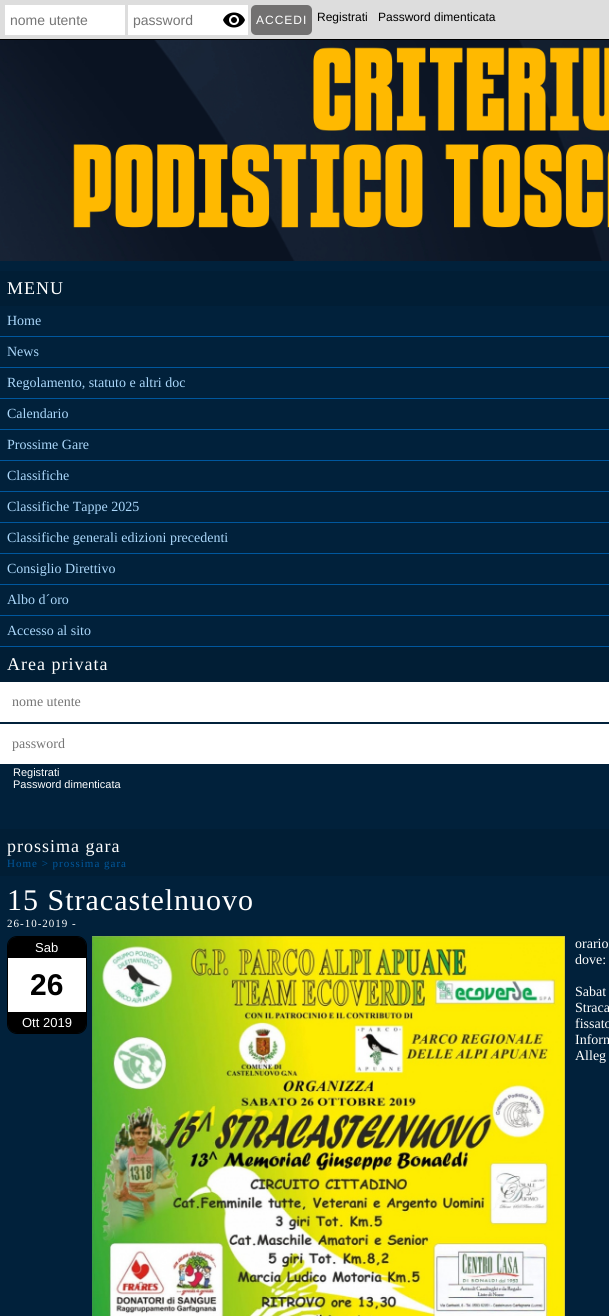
import math
import cairo

surface = cairo.ImageSurface(cairo.Format.RGB24, 609, 1316)
ctx = cairo.Context(surface)
options = cairo.FontOptions()
options.set_hint_metrics(cairo.HintMetrics.OFF)
options.set_hint_style(cairo.HintStyle.NONE)
ctx.set_font_options(options)
ctx.set_miter_limit(4)


def ink(r, g, b):
    ctx.set_source_rgb(r / 255, g / 255, b / 255)


def write(x, y, s, family, size, color, bold=False, italic=False):
    ctx.select_font_face(family, cairo.FontSlant.ITALIC if italic else cairo.FontSlant.NORMAL, cairo.FontWeight.BOLD if bold else cairo.FontWeight.NORMAL)
    ctx.set_font_size(size)
    ink(*color)
    ctx.move_to(x, y)
    ctx.show_text(s)


def write_spaced(x, y, s, letter, word):
    ctx.move_to(x, y)
    for ch in s:
        ctx.show_text(ch)
        ctx.rel_move_to(letter + word * (ch == ' '), 0)


def block(x, y, w, h, *color):
    ink(*color)
    ctx.rectangle(x, y, w, h)
    ctx.fill()


def round_path(x, y, w, h, r):
    ctx.new_sub_path()
    for i, (u, v) in enumerate([(x + w - r, y + h - r), (x + r, y + h - r), (x + r, y + r), (x + w - r, y + r)]):
        ctx.arc(u, v, r, i * math.pi / 2, (i + 1) * math.pi / 2)
    ctx.close_path()


def paste(path, x, y, w, h):
    ctx.save()
    ctx.set_source_surface(cairo.ImageSurface.create_from_png(path), x, y)
    ctx.rectangle(x, y, w, h)
    ctx.fill()
    ctx.restore()


s1 = dict(family="Liberation Sans", size=14, color=(117, 117, 117))
s2 = dict(family="Liberation Sans", size=12, color=(0, 0, 0))
s3 = dict(family="Liberation Serif", size=14, color=(171, 215, 250))
s4 = dict(family="Liberation Serif", size=14, color=(117, 117, 117))
s5 = dict(family="Liberation Sans", size=11, color=(255, 255, 255))
s6 = dict(family="Liberation Sans", size=13, color=(255, 255, 255))
s7 = dict(family="Liberation Sans", size=30, color=(0, 0, 0), bold=True)
s8 = dict(family="Liberation Serif", size=14, color=(255, 255, 255))

ink(255, 255, 255)
ctx.paint()
block(0, 0, 609, 39, 221, 221, 221)
block(0, 39, 609, 1, 0, 0, 0)
block(5, 5, 120, 30, 255, 255, 255)
write(10, 25, "nome utente", **s1)
block(128, 5, 120, 30, 255, 255, 255)
write(133, 25, "password", **s1)
paste("pic1.png", 223, 12, 22, 16)
ink(114, 113, 113)
round_path(251, 5, 61, 30, 5)
ctx.fill()
ctx.set_font_size(12)
ink(255, 255, 255)
write_spaced(256, 24, "ACCEDI", 1, 0)
write(317, 21, "Registrati", **s2)
write(378, 21, "Password dimenticata", **s2)
paste("pic2.png", 0, 40, 609, 221)
block(0, 261, 609, 1055, 1, 33, 59)
block(0, 271, 609, 35, 1, 30, 53)
ctx.select_font_face("Liberation Serif")
ctx.set_font_size(18)
ink(255, 255, 255)
write_spaced(7, 294, "MENU", 1, 0)
block(0, 336, 609, 1, 0, 87, 158)
write(7, 325, "Home", **s3)
block(0, 367, 609, 1, 0, 87, 158)
write(7, 356, "News", **s3)
block(0, 398, 609, 1, 0, 87, 158)
write(7, 387, "Regolamento, statuto e altri doc", **s3)
block(0, 429, 609, 1, 0, 87, 158)
write(7, 418, "Calendario", **s3)
block(0, 460, 609, 1, 0, 87, 158)
write(7, 449, "Prossime Gare", **s3)
block(0, 491, 609, 1, 0, 87, 158)
write(7, 480, "Classifiche", **s3)
block(0, 522, 609, 1, 0, 87, 158)
write(7, 511, "Classifiche Tappe 2025", **s3)
block(0, 553, 609, 1, 0, 87, 158)
write(7, 542, "Classifiche generali edizioni precedenti", **s3)
block(0, 584, 609, 1, 0, 87, 158)
write(7, 573, "Consiglio Direttivo", **s3)
block(0, 615, 609, 1, 0, 87, 158)
write(7, 604, "Albo d´oro", **s3)
block(0, 646, 609, 1, 0, 87, 158)
write(7, 635, "Accesso al sito", **s3)
block(0, 647, 609, 35, 1, 30, 53)
ctx.set_font_size(18)
ink(255, 255, 255)
write_spaced(7, 670, "Area privata", 1, 0)
block(0, 682, 609, 40, 255, 255, 255)
write(12, 706, "nome utente", **s4)
block(0, 724, 609, 40, 255, 255, 255)
write(12, 748, "password", **s4)
write(13, 776, "Registrati", **s5)
write(13, 788, "Password dimenticata", **s5)
block(0, 829, 609, 47, 1, 30, 53)
ctx.select_font_face("Liberation Serif")
ctx.set_font_size(18)
ink(255, 255, 255)
write_spaced(7, 852, "prossima gara", 1, 0)
ctx.set_font_size(11)
ink(0, 87, 156)
write_spaced(7, 867, "Home > prossima gara", 1, 0)
ctx.set_font_size(30)
ink(255, 255, 255)
write_spaced(7, 910, "15 Stracastelnuovo", 1, 0)
ctx.set_font_size(11)
write_spaced(7, 927, "26-10-2019 -", 1, 0)
round_path(7.5, 936.5, 79, 97, 9.5)
ink(0, 0, 0)
ctx.set_line_width(1)
ctx.stroke()
ctx.new_path()
ctx.move_to(17, 937)
ctx.line_to(77, 937)
ctx.curve_to(82, 937, 86, 941, 86, 946)
ctx.line_to(86, 958)
ctx.line_to(8, 958)
ctx.line_to(8, 946)
ctx.curve_to(8, 941, 12, 937, 17, 937)
ctx.close_path()
ctx.fill()
write(35, 952, "Sab", **s6)
block(8, 958, 78, 54, 255, 255, 255)
write(30, 995, "26", **s7)
ctx.new_path()
ctx.move_to(8, 1012)
ctx.line_to(86, 1012)
ctx.line_to(86, 1024)
ctx.curve_to(86, 1029, 82, 1033, 77, 1033)
ctx.line_to(17, 1033)
ctx.curve_to(12, 1033, 8, 1029, 8, 1024)
ctx.close_path()
ctx.fill()
write(22, 1027, "Ott 2019", **s6)
paste("pic3.png", 92, 936, 473, 380)
write(575, 948, "orario", **s8)
write(575, 964, "dove:", **s8)
write(575, 996, "Sabat", **s8)
write(575, 1012, "Straca", **s8)
write(575, 1028, "fissato", **s8)
write(575, 1044, "Inform", **s8)
write(575, 1060, "Alleg", **s8)
surface.write_to_png("screenshot.png")
